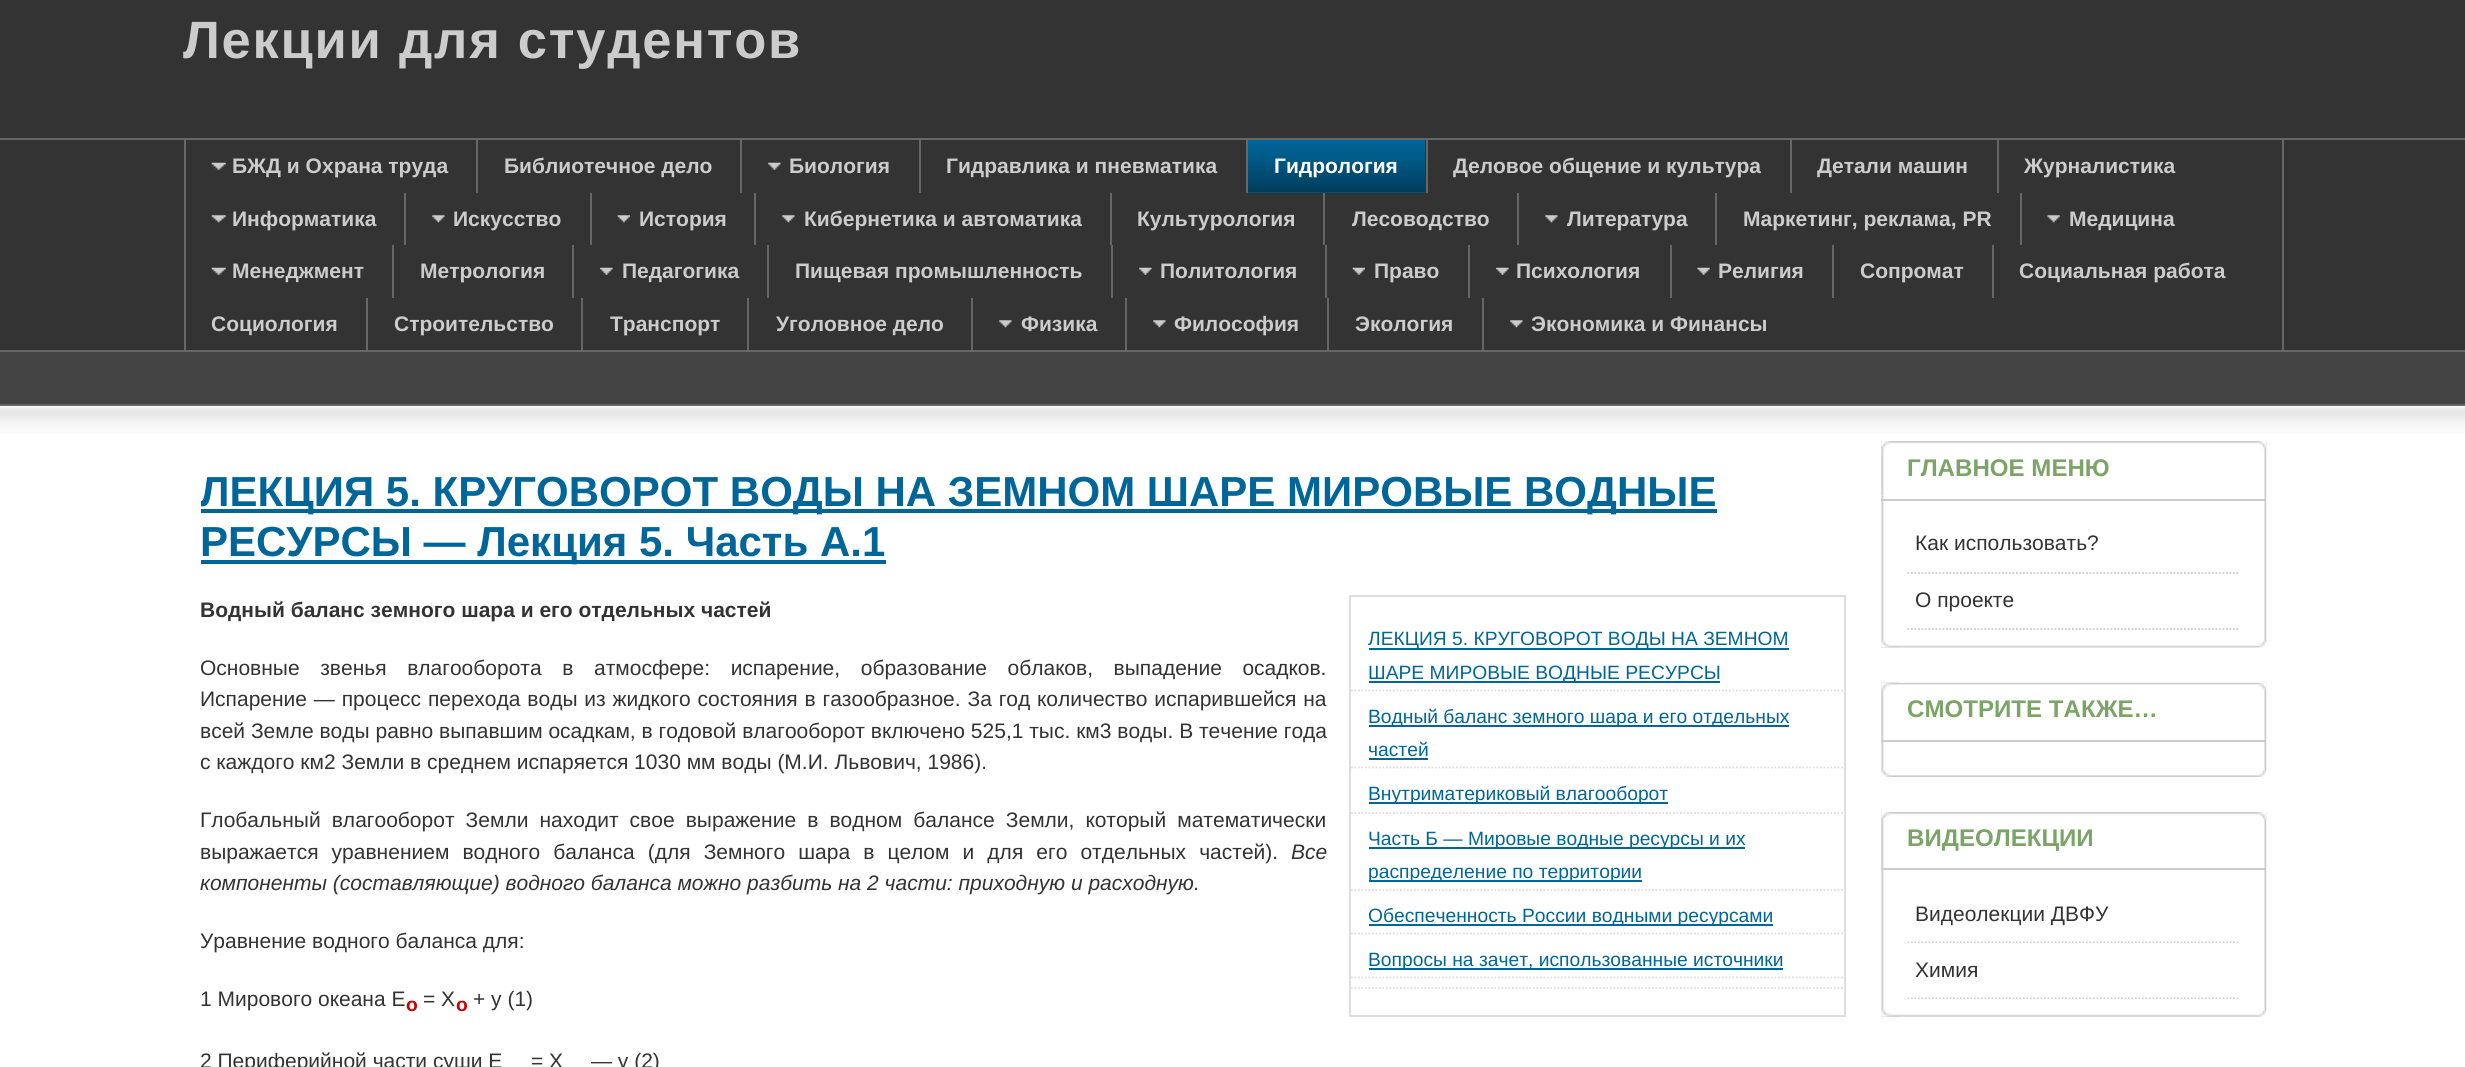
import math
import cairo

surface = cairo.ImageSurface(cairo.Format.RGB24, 2465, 1067)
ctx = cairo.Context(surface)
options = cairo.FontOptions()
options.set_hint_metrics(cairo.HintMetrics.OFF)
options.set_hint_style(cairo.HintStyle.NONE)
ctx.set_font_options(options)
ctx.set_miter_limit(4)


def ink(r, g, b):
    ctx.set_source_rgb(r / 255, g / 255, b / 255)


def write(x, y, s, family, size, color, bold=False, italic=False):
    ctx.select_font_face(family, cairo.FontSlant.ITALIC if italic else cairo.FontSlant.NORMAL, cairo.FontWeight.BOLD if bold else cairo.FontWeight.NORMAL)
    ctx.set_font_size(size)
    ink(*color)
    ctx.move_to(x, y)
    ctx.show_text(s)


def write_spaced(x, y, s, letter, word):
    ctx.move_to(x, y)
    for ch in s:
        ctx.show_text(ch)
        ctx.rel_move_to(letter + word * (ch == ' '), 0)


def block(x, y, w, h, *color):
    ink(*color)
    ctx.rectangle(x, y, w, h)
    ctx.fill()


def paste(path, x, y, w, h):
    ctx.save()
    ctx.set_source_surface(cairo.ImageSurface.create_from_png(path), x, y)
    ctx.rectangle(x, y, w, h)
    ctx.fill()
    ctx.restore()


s1 = dict(family="Liberation Sans", size=21, color=(204, 204, 204), bold=True)
s2 = dict(family="Liberation Sans", size=21, color=(255, 255, 255), bold=True)
s3 = dict(family="Liberation Sans", size=42, color=(0, 102, 153), bold=True)
s4 = dict(family="Liberation Sans", size=21, color=(51, 51, 51), bold=True)
s5 = dict(family="Liberation Sans", size=21, color=(51, 51, 51))
s6 = dict(family="Liberation Sans", size=19.25, color=(0, 102, 153))
s7 = dict(family="Liberation Sans", size=21, color=(51, 51, 51), italic=True)
s8 = dict(family="Liberation Sans", size=19.25, color=(204, 0, 0), bold=True)
s9 = dict(family="Liberation Sans", size=24.1, color=(123, 165, 102), bold=True)

ink(255, 255, 255)
ctx.paint()
block(0, 0, 2465, 138, 51, 51, 51)
ctx.select_font_face("Liberation Sans", cairo.FontSlant.NORMAL, cairo.FontWeight.BOLD)
ctx.set_font_size(52.5)
ink(204, 204, 204)
write_spaced(183, 58, "Лекции для студентов", 1.75, 0)
block(0, 140, 2465, 210, 51, 51, 51)
block(0, 138, 2465, 2, 102, 102, 102)
block(2282, 140, 2, 210, 102, 102, 102)
block(184, 140, 2, 210, 102, 102, 102)
paste("pic1.png", 211, 162, 15, 8)
write(232, 173, "БЖД и Охрана труда", **s1)
block(476, 140, 2, 53, 102, 102, 102)
write(504, 173, "Библиотечное дело", **s1)
block(740, 140, 2, 53, 102, 102, 102)
paste("pic2.png", 768, 162, 13, 8)
write(789, 173, "Биология", **s1)
block(919, 140, 2, 53, 102, 102, 102)
write(946, 173, "Гидравлика и пневматика", **s1)
block(1248, 140, 177, 53, 0, 102, 153)
paste("pic3.png", 1248, 143, 177, 50)
block(1246, 140, 2, 53, 102, 102, 102)
write(1274, 173, "Гидрология", **s2)
block(1426, 140, 2, 53, 102, 102, 102)
write(1453, 173, "Деловое общение и культура", **s1)
block(1790, 140, 2, 53, 102, 102, 102)
write(1817, 173, "Детали машин", **s1)
block(1997, 140, 2, 53, 102, 102, 102)
write(2024, 173, "Журналистика", **s1)
paste("pic4.png", 211, 215, 15, 8)
write(232, 226, "Информатика", **s1)
block(404, 193, 2, 52, 102, 102, 102)
paste("pic5.png", 432, 215, 13, 8)
write(453, 226, "Искусство", **s1)
block(590, 193, 2, 52, 102, 102, 102)
paste("pic6.png", 617, 215, 13, 8)
write(639, 226, "История", **s1)
block(754, 193, 2, 52, 102, 102, 102)
paste("pic5.png", 782, 215, 13, 8)
write(804, 226, "Кибернетика и автоматика", **s1)
block(1110, 193, 2, 52, 102, 102, 102)
write(1137, 226, "Культурология", **s1)
block(1323, 193, 2, 52, 102, 102, 102)
write(1352, 226, "Лесоводство", **s1)
block(1517, 193, 2, 52, 102, 102, 102)
paste("pic5.png", 1545, 215, 13, 8)
write(1567, 226, "Литература", **s1)
block(1715, 193, 2, 52, 102, 102, 102)
write(1743, 226, "Маркетинг, реклама, PR", **s1)
block(2020, 193, 2, 52, 102, 102, 102)
paste("pic7.png", 2047, 215, 13, 8)
write(2069, 226, "Медицина", **s1)
paste("pic1.png", 211, 267, 15, 8)
write(232, 278, "Менеджмент", **s1)
block(392, 245, 2, 53, 102, 102, 102)
write(420, 278, "Метрология", **s1)
block(572, 245, 2, 53, 102, 102, 102)
paste("pic2.png", 600, 267, 13, 8)
write(622, 278, "Педагогика", **s1)
block(767, 245, 2, 53, 102, 102, 102)
write(795, 278, "Пищевая промышленность", **s1)
block(1111, 245, 2, 53, 102, 102, 102)
paste("pic2.png", 1139, 267, 13, 8)
write(1160, 278, "Политология", **s1)
block(1325, 245, 2, 53, 102, 102, 102)
paste("pic8.png", 1352, 267, 13, 8)
write(1374, 278, "Право", **s1)
block(1468, 245, 2, 53, 102, 102, 102)
paste("pic9.png", 1496, 267, 13, 8)
write(1516, 278, "Психология", **s1)
block(1670, 245, 2, 53, 102, 102, 102)
paste("pic10.png", 1697, 267, 13, 8)
write(1718, 278, "Религия", **s1)
block(1832, 245, 2, 53, 102, 102, 102)
write(1860, 278, "Сопромат", **s1)
block(1992, 245, 2, 53, 102, 102, 102)
write(2019, 278, "Социальная работа", **s1)
write(211, 331, "Социология", **s1)
block(366, 298, 2, 52, 102, 102, 102)
write(394, 331, "Строительство", **s1)
block(581, 298, 2, 52, 102, 102, 102)
write(610, 331, "Транспорт", **s1)
block(747, 298, 2, 52, 102, 102, 102)
write(776, 331, "Уголовное дело", **s1)
block(971, 298, 2, 52, 102, 102, 102)
paste("pic11.png", 999, 320, 13, 8)
write(1021, 331, "Физика", **s1)
block(1125, 298, 2, 52, 102, 102, 102)
paste("pic5.png", 1153, 320, 13, 8)
write(1174, 331, "Философия", **s1)
block(1327, 298, 2, 52, 102, 102, 102)
write(1355, 331, "Экология", **s1)
block(1482, 298, 2, 52, 102, 102, 102)
paste("pic11.png", 1510, 320, 13, 8)
write(1531, 331, "Экономика и Финансы", **s1)
block(0, 352, 2465, 52, 68, 68, 68)
block(0, 350, 2465, 2, 102, 102, 102)
block(0, 404, 2465, 2, 102, 102, 102)
paste("pic12.png", 0, 406, 2465, 28)
block(201, 509, 1516, 4, 0, 102, 153)
ctx.save()
ctx.rectangle(201, 441, 1645, 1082)
ctx.clip()
write(200, 506, "ЛЕКЦИЯ 5. КРУГОВОРОТ ВОДЫ НА ЗЕМНОМ ШАРЕ МИРОВЫЕ ВОДНЫЕ", **s3)
ctx.restore()
block(201, 560, 685, 4, 0, 102, 153)
write(200, 556, "РЕСУРСЫ — Лекция 5. Часть А.1", **s3)
write(200, 617, "Водный баланс земного шара и его отдельных частей", **s4)
ctx.select_font_face("Liberation Sans")
write_spaced(200, 675, "Основные звенья влагооборота в атмосфере: испарение, образование облаков, выпадение осадков.", 0, 14.75)
write_spaced(200, 706, "Испарение — процесс перехода воды из жидкого состояния в газообразное. За год количество испарившейся на", 0, 1)
write(200, 738, "всей Земле воды равно выпавшим осадкам, в годовой влагооборот включено 525,1 тыс. км3 воды. В течение года", **s5)
write(200, 769, "с каждого км2 Земли в среднем испаряется 1030 мм воды (М.И. Львович, 1986).", **s5)
ctx.rectangle(1350, 596, 495, 420)
ink(222, 222, 222)
ctx.stroke()
ctx.new_path()
ctx.move_to(1351, 690.5)
ctx.line_to(1844.5, 690.5)
ctx.set_line_width(1.8)
ctx.set_dash([1.75, 1.75])
ctx.stroke()
block(1369, 648, 420, 2, 0, 102, 153)
write(1368, 645, "ЛЕКЦИЯ 5. КРУГОВОРОТ ВОДЫ НА ЗЕМНОМ", **s6)
block(1369, 681, 351, 2, 0, 102, 153)
write(1368, 679, "ШАРЕ МИРОВЫЕ ВОДНЫЕ РЕСУРСЫ", **s6)
ctx.new_path()
ctx.move_to(1351, 767.5)
ctx.line_to(1844.5, 767.5)
ink(222, 222, 222)
ctx.stroke()
block(1369, 725, 420, 2, 0, 102, 153)
write(1368, 723, "Водный баланс земного шара и его отдельных", **s6)
write(1368, 756, "частей", **s6)
block(1369, 758, 59, 2, 0, 102, 153)
ctx.new_path()
ctx.move_to(1351, 813)
ctx.line_to(1844.5, 813)
ink(222, 222, 222)
ctx.stroke()
block(1369, 802, 299, 2, 0, 102, 153)
write(1368, 800, "Внутриматериковый влагооборот", **s6)
ctx.new_path()
ctx.move_to(1351, 890)
ctx.line_to(1844.5, 890)
ink(222, 222, 222)
ctx.stroke()
block(1369, 847, 376, 2, 0, 102, 153)
write(1368, 845, "Часть Б — Мировые водные ресурсы и их", **s6)
block(1369, 880, 273, 2, 0, 102, 153)
write(1368, 878, "распределение по территории", **s6)
ctx.new_path()
ctx.move_to(1351, 933.5)
ctx.line_to(1844.5, 933.5)
ink(222, 222, 222)
ctx.stroke()
block(1369, 924, 404, 2, 0, 102, 153)
write(1368, 922, "Обеспеченность России водными ресурсами", **s6)
ctx.new_path()
ctx.move_to(1351, 977.5)
ctx.line_to(1844.5, 977.5)
ink(222, 222, 222)
ctx.stroke()
block(1369, 968, 414, 2, 0, 102, 153)
write(1368, 966, "Вопросы на зачет, использованные источники", **s6)
ctx.new_path()
ctx.move_to(1351, 988)
ctx.line_to(1844.5, 988)
ink(222, 222, 222)
ctx.stroke()
ctx.set_font_size(21)
ink(51, 51, 51)
write_spaced(200, 827, "Глобальный влагооборот Земли находит свое выражение в водном балансе Земли, который математически", 0, 5.25)
write_spaced(200, 859, "выражается уравнением водного баланса (для Земного шара в целом и для его отдельных частей).", 0, 7.25)
write(1291, 859, "Все", **s7)
write(200, 890, "компоненты (составляющие) водного баланса можно разбить на 2 части: приходную и расходную.", **s7)
write(200, 948, "Уравнение водного баланса для:", **s5)
write(200, 1006, "1 Мирового океана E", **s5)
write(406, 1011, "о", **s8)
write(423, 1006, "= Х", **s5)
write(456, 1011, "о", **s8)
write(473, 1006, "+ y (1)", **s5)
write(200, 1068, "2 Периферийной части суши Е", **s5)
write(531, 1068, "= Х", **s5)
write(591, 1068, "— y (2)", **s5)
paste("pic13.png", 1881, 441, 386, 207)
paste("pic14.png", 1881, 441, 18, 207)
paste("pic15.png", 1881, 441, 385, 55)
paste("pic16.png", 1881, 441, 9, 54)
block(1881, 499, 385, 2, 204, 204, 204)
write(1907, 476, "ГЛАВНОЕ МЕНЮ", **s9)
ctx.new_path()
ctx.move_to(1907.5, 573)
ctx.line_to(2240, 573)
ink(204, 204, 204)
ctx.stroke()
write(1915, 550, "Как использовать?", **s5)
ctx.new_path()
ctx.move_to(1907.5, 629)
ctx.line_to(2240, 629)
ink(204, 204, 204)
ctx.stroke()
write(1915, 607, "О проекте", **s5)
paste("pic17.png", 1881, 682, 386, 95)
paste("pic18.png", 1881, 682, 9, 95)
paste("pic19.png", 1881, 682, 385, 55)
paste("pic20.png", 1881, 682, 18, 55)
block(1881, 740, 385, 2, 204, 204, 204)
write(1907, 717, "СМОТРИТЕ ТАКЖЕ…", **s9)
paste("pic21.png", 1881, 812, 386, 205)
paste("pic22.png", 1881, 812, 18, 205)
paste("pic23.png", 1881, 812, 385, 56)
paste("pic24.png", 1881, 812, 9, 56)
block(1881, 868, 385, 2, 204, 204, 204)
write(1907, 846, "ВИДЕОЛЕКЦИИ", **s9)
ctx.save()
ctx.rectangle(1908, 887, 332, 56)
ctx.clip()
ctx.new_path()
ctx.move_to(1907.5, 942.5)
ctx.line_to(2240, 942.5)
ink(204, 204, 204)
ctx.stroke()
ctx.restore()
write(1915, 921, "Видеолекции ДВФУ", **s5)
ctx.save()
ctx.rectangle(1908, 943, 332, 56)
ctx.clip()
ctx.new_path()
ctx.move_to(1907.5, 998.5)
ctx.line_to(2240, 998.5)
ink(204, 204, 204)
ctx.stroke()
ctx.restore()
write(1915, 977, "Химия", **s5)
surface.write_to_png("screenshot.png")
